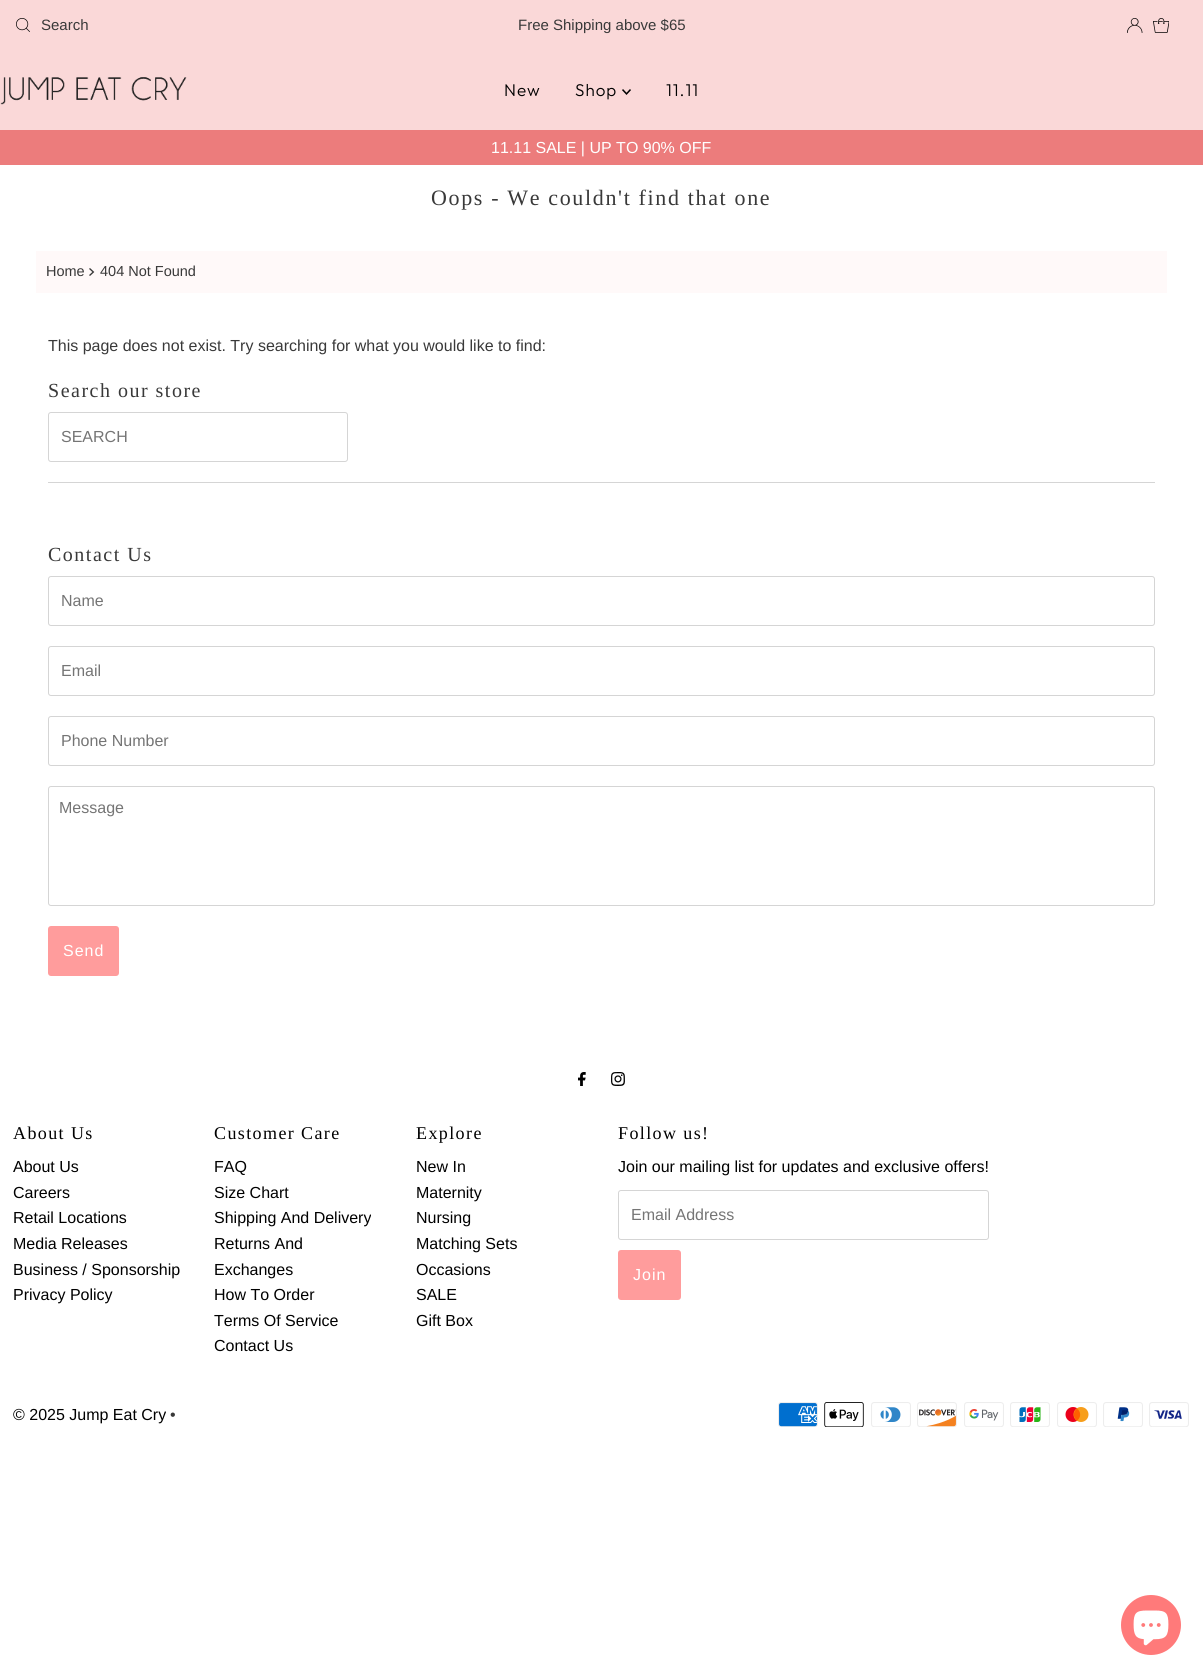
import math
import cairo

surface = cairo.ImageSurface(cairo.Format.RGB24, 1203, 1676)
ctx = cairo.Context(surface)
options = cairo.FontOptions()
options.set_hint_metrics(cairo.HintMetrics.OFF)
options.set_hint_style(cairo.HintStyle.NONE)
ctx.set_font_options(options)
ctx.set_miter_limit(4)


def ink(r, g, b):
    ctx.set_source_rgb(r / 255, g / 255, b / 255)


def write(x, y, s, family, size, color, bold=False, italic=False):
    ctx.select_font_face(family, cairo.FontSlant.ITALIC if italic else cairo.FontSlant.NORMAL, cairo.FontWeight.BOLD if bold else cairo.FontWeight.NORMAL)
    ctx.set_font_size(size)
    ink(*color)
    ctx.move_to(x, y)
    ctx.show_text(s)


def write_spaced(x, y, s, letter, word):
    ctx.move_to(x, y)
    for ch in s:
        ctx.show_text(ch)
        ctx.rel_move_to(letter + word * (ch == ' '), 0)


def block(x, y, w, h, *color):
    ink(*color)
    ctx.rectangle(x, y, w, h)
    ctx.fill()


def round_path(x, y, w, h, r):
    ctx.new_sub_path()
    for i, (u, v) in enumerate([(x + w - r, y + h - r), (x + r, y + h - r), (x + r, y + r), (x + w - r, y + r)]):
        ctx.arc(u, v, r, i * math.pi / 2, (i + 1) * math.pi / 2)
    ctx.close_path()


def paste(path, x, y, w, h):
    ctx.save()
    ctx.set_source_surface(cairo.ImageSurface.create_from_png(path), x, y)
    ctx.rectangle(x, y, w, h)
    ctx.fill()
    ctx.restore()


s1 = dict(family="Liberation Sans", size=15, color=(57, 57, 57))
s2 = dict(family="Liberation Sans", size=16, color=(255, 255, 255))
s3 = dict(family="Liberation Sans", size=14.5, color=(57, 57, 57))
s4 = dict(family="Liberation Sans", size=16, color=(57, 57, 57))
s5 = dict(family="Liberation Sans", size=16, color=(117, 117, 117))
s6 = dict(family="Liberation Sans", size=16, color=(0, 0, 0))

ink(255, 255, 255)
ctx.paint()
block(0, 0, 1203, 130, 250, 216, 216)
paste("pic1.png", 16, 18, 14, 14)
write(41, 30, "Search", **s1)
write(518, 30, "Free Shipping above $65", **s1)
paste("pic2.png", 1127, 18, 16, 15)
paste("pic3.png", 1153, 18, 16, 15)
paste("pic4.png", 0, 77, 187, 28)
ctx.select_font_face("Outfit Light")
ctx.set_font_size(17)
ink(0, 0, 0)
write_spaced(504, 96, "New", 1, 0)
write_spaced(575, 96, "Shop", 1, 0)
paste("pic5.png", 622, 89, 9, 6)
write_spaced(666, 96, "11.11", 1, 0)
block(0, 130, 1203, 35, 236, 124, 124)
write(491, 153, "11.11 SALE | UP TO 90% OFF", **s2)
ctx.select_font_face("Liberation Serif")
ctx.set_font_size(22)
ink(57, 57, 57)
write_spaced(431, 205, "Oops - We couldn't find that one", 1.65, 0)
block(36, 251, 1131, 42, 255, 249, 249)
write(46, 276, "Home", **s3)
paste("pic6.png", 89, 268, 6, 8)
write(100, 276, "404 Not Found", **s3)
write(48, 351, "This page does not exist. Try searching for what you would like to find:", **s4)
block(48, 482, 1107, 1, 213, 213, 213)
ctx.select_font_face("Liberation Serif")
ctx.set_font_size(20)
ink(57, 57, 57)
write_spaced(48, 397, "Search our store", 1.5, 0)
round_path(48.5, 412.5, 299, 49, 2.5)
ink(213, 213, 213)
ctx.set_line_width(1)
ctx.stroke()
write(61, 442, "SEARCH", **s5)
ctx.select_font_face("Liberation Serif")
ctx.set_font_size(20)
ink(57, 57, 57)
write_spaced(48, 561, "Contact Us", 1.5, 0)
round_path(48.5, 576.5, 1106, 49, 2.5)
ink(213, 213, 213)
ctx.stroke()
write(61, 606, "Name", **s5)
round_path(48.5, 646.5, 1106, 49, 2.5)
ink(213, 213, 213)
ctx.stroke()
write(61, 676, "Email", **s5)
round_path(48.5, 716.5, 1106, 49, 2.5)
ink(213, 213, 213)
ctx.stroke()
write(61, 746, "Phone Number", **s5)
round_path(48.5, 786.5, 1106, 119, 2.5)
ink(213, 213, 213)
ctx.stroke()
write(59, 813, "Message", **s5)
ink(255, 156, 156)
round_path(48, 926, 71, 50, 3)
ctx.fill()
ink(255, 255, 255)
write_spaced(63, 956, "Send", 1, 0)
paste("pic7.png", 578, 1072, 8, 14)
paste("pic8.png", 611, 1072, 14, 14)
ctx.select_font_face("Liberation Serif")
ctx.set_font_size(18)
ink(0, 0, 0)
write_spaced(13, 1139, "About Us", 1.4, 0)
write(13, 1172, "About Us", **s6)
write(13, 1198, "Careers", **s6)
write(13, 1223, "Retail Locations", **s6)
write(13, 1249, "Media Releases", **s6)
write(13, 1275, "Business / Sponsorship", **s6)
write(13, 1300, "Privacy Policy", **s6)
ctx.select_font_face("Liberation Serif")
ctx.set_font_size(18)
write_spaced(214, 1139, "Customer Care", 1.4, 0)
write(214, 1172, "FAQ", **s6)
write(214, 1198, "Size Chart", **s6)
write(214, 1223, "Shipping And Delivery", **s6)
write(214, 1249, "Returns And", **s6)
write(214, 1275, "Exchanges", **s6)
write(214, 1300, "How To Order", **s6)
write(214, 1326, "Terms Of Service", **s6)
write(214, 1351, "Contact Us", **s6)
ctx.select_font_face("Liberation Serif")
ctx.set_font_size(18)
write_spaced(416, 1139, "Explore", 1.4, 0)
write(416, 1172, "New In", **s6)
write(416, 1198, "Maternity", **s6)
write(416, 1223, "Nursing", **s6)
write(416, 1249, "Matching Sets", **s6)
write(416, 1275, "Occasions", **s6)
write(416, 1300, "SALE", **s6)
write(416, 1326, "Gift Box", **s6)
ctx.select_font_face("Liberation Serif")
ctx.set_font_size(18)
write_spaced(618, 1139, "Follow us!", 1.4, 0)
write(618, 1172, "Join our mailing list for updates and exclusive offers!", **s6)
round_path(618.5, 1190.5, 370, 49, 2.5)
ink(213, 213, 213)
ctx.stroke()
write(631, 1220, "Email Address", **s5)
ink(255, 156, 156)
round_path(618, 1250, 63, 50, 3)
ctx.fill()
ink(255, 255, 255)
write_spaced(633, 1280, "Join", 1, 0)
write(13, 1420, "© 2025 Jump Eat Cry", **s6)
write(170, 1420, "•", **s4)
paste("pic9.png", 778, 1402, 40, 25)
paste("pic10.png", 824, 1402, 40, 25)
paste("pic11.png", 871, 1402, 40, 25)
paste("pic12.png", 917, 1402, 40, 25)
paste("pic13.png", 964, 1402, 40, 25)
paste("pic14.png", 1010, 1402, 40, 25)
paste("pic15.png", 1057, 1402, 40, 25)
paste("pic16.png", 1103, 1402, 40, 25)
paste("pic17.png", 1149, 1402, 40, 25)
ink(255, 122, 122)
ctx.arc(1151, 1625, 30, 0, 2 * math.pi)
ctx.fill()
paste("pic18.png", 1133, 1610, 36, 36)
surface.write_to_png("screenshot.png")
